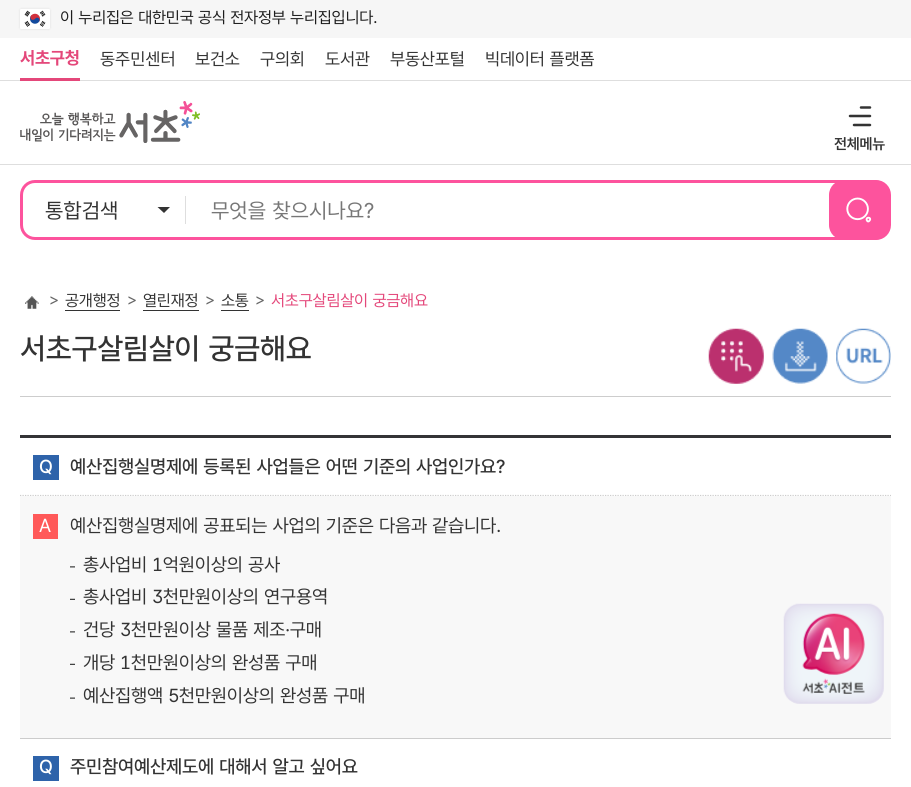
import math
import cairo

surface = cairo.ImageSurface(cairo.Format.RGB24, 911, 787)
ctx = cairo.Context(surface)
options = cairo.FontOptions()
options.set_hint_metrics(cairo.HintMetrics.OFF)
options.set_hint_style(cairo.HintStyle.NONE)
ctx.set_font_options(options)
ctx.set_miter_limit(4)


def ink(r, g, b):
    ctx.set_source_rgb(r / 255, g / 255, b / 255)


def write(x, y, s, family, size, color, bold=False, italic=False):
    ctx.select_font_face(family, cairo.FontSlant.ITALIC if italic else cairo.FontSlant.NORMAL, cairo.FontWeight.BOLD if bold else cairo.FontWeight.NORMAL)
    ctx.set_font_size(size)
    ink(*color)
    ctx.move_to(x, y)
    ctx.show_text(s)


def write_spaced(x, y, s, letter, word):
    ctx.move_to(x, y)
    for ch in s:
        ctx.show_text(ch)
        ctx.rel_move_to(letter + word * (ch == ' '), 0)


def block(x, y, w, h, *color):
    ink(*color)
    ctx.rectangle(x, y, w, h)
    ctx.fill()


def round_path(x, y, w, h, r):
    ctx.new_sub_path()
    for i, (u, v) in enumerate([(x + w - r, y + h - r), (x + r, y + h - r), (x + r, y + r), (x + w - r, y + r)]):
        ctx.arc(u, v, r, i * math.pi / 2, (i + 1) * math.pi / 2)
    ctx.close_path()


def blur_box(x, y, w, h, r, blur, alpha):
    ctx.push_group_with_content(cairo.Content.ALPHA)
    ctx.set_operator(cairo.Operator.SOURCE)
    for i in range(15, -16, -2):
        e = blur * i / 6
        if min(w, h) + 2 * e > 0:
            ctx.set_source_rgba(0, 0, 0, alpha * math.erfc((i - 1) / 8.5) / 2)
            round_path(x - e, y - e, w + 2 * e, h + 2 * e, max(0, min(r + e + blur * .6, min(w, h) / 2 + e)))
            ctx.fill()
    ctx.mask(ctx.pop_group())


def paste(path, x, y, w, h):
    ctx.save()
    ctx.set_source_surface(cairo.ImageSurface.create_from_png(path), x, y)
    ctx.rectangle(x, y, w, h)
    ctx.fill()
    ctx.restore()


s1 = dict(family="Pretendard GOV", size=17.5, color=(51, 51, 51))
s2 = dict(family="Pretendard GOV", size=21.25, color=(51, 51, 51))
s3 = dict(family="Pretendard GOV", size=21.25, color=(119, 119, 119))

ink(255, 255, 255)
ctx.paint()
block(0, 0, 911, 38, 246, 246, 246)
ink(0, 0, 0)
blur_box(20, 9, 30, 20, 1, 1, 0.1)
paste("pic1.png", 20, 9, 30, 20)
ctx.select_font_face("Pretendard GOV")
ctx.set_font_size(16.25)
ink(29, 29, 29)
write_spaced(60, 23, "이 누리집은 대한민국 공식 전자정부 누리집입니다.", -0.2, 0)
block(0, 80, 911, 1, 222, 222, 222)
ctx.select_font_face("Pretendard GOV", cairo.FontSlant.NORMAL, cairo.FontWeight.BOLD)
ctx.set_font_size(17.5)
ink(228, 71, 122)
write_spaced(20, 64, "서초구청", -0.2, 0)
block(20, 78, 60, 3, 228, 71, 122)
write(100, 65, "동주민센터", **s1)
write_spaced(195, 65, "보건소", -0.2, 0)
write_spaced(260, 65, "구의회", -0.2, 0)
write_spaced(325, 65, "도서관", -0.2, 0)
write_spaced(390, 65, "부동산포털", -0.2, 0)
write_spaced(485, 65, "빅데이터 플랫폼", -0.2, 0)
paste("pic2.png", 20, 101, 180, 42)
ctx.new_path()
ctx.move_to(854, 125)
ctx.line_to(870, 125)
ctx.move_to(870, 116)
ctx.line_to(850, 116)
ctx.move_to(870, 107.5)
ctx.line_to(861, 107.5)
ctx.set_line_width(2.5)
ctx.set_line_cap(cairo.LineCap.ROUND)
ctx.stroke()
ctx.select_font_face("Pretendard GOV SemiBold")
ctx.set_font_size(15)
write_spaced(834, 149, "전체메뉴", -0.2, 0)
block(0, 164, 911, 1, 222, 222, 222)
round_path(21.5, 181.5, 868, 57, 13.5)
ink(253, 83, 157)
ctx.set_line_width(3)
ctx.set_line_cap(cairo.LineCap.BUTT)
ctx.stroke()
ink(51, 51, 51)
ctx.new_path()
ctx.move_to(164, 213)
ctx.line_to(157.5, 207)
ctx.line_to(170, 207)
ctx.close_path()
ctx.fill()
write(45, 218, "통합검색", **s2)
block(185, 196, 1, 28, 222, 222, 222)
write(211, 218, "무엇을 찾으시나요?", **s3)
ink(253, 83, 157)
round_path(829, 180, 60, 60, 15)
ctx.fill()
paste("pic3.png", 846, 197, 26, 26)
block(20, 396, 871, 1, 205, 205, 205)
paste("pic4.png", 25, 296, 14, 13)
ctx.set_font_size(16.25)
ink(102, 102, 102)
write_spaced(49, 306, ">", -0.2, 0)
ink(51, 51, 51)
write_spaced(65, 306, "공개행정", -0.2, 0)
block(65, 310, 55, 1, 51, 51, 51)
ink(102, 102, 102)
write_spaced(127, 306, ">", -0.2, 0)
ink(51, 51, 51)
write_spaced(143, 306, "열린재정", -0.2, 0)
block(143, 310, 56, 1, 51, 51, 51)
ink(102, 102, 102)
write_spaced(205, 306, ">", -0.2, 0)
ink(51, 51, 51)
write_spaced(221, 306, "소통", -0.2, 0)
block(221, 310, 28, 1, 51, 51, 51)
ink(102, 102, 102)
write_spaced(255, 306, ">", -0.2, 0)
ink(228, 71, 122)
write_spaced(271, 306, "서초구살림살이 궁금해요", -0.2, 0)
ctx.select_font_face("Pretendard GOV Medium")
ctx.set_font_size(30)
ink(51, 51, 51)
write_spaced(20, 359, "서초구살림살이 궁금해요", -0.2, 0)
paste("pic5.png", 708, 328, 56, 56)
paste("pic6.png", 772, 328, 56, 56)
paste("pic7.png", 836, 328, 55, 56)
block(20, 435, 871, 3, 52, 52, 54)
ctx.new_path()
ctx.move_to(20, 495.5)
ctx.line_to(891, 495.5)
ink(204, 204, 204)
ctx.set_line_width(1.2)
ctx.set_dash([1.25, 1.25])
ctx.stroke()
block(33, 455, 26, 25, 46, 99, 170)
ctx.set_font_size(18.75)
ink(255, 255, 255)
write_spaced(39, 473, "Q", -0.2, 0)
ink(51, 51, 51)
write_spaced(70, 473, "예산집행실명제에 등록된 사업들은 어떤 기준의 사업인가요?", -0.2, 0)
block(20, 496, 871, 242, 248, 248, 248)
block(20, 738, 871, 1, 204, 204, 204)
block(33, 514, 25, 25, 255, 89, 89)
ctx.select_font_face("Pretendard GOV")
ink(255, 255, 255)
write_spaced(39, 532, "A", -0.2, 0)
ink(51, 51, 51)
write_spaced(70, 532, "예산집행실명제에 공표되는 사업의 기준은 다음과 같습니다.", -0.2, 0)
paste("pic8.png", 70, 566, 5, 2)
write_spaced(83, 571, "총사업비 1억원이상의 공사", -0.2, 0)
paste("pic9.png", 70, 598, 5, 2)
write_spaced(83, 603, "총사업비 3천만원이상의 연구용역", -0.2, 0)
paste("pic8.png", 70, 631, 5, 2)
write_spaced(83, 636, "건당 3천만원이상 물품 제조·구매", -0.2, 0)
paste("pic9.png", 70, 663, 5, 2)
write_spaced(83, 669, "개당 1천만원이상의 완성품 구매", -0.2, 0)
paste("pic10.png", 70, 697, 5, 2)
write_spaced(83, 702, "예산집행액 5천만원이상의 완성품 구매", -0.2, 0)
block(33, 756, 26, 25, 46, 99, 170)
ctx.select_font_face("Pretendard GOV Medium")
ink(255, 255, 255)
write_spaced(39, 773, "Q", -0.2, 0)
ink(51, 51, 51)
write_spaced(70, 773, "주민참여예산제도에 대해서 알고 싶어요", -0.2, 0)
paste("pic11.png", 783, 603, 101, 101)
surface.write_to_png("screenshot.png")
